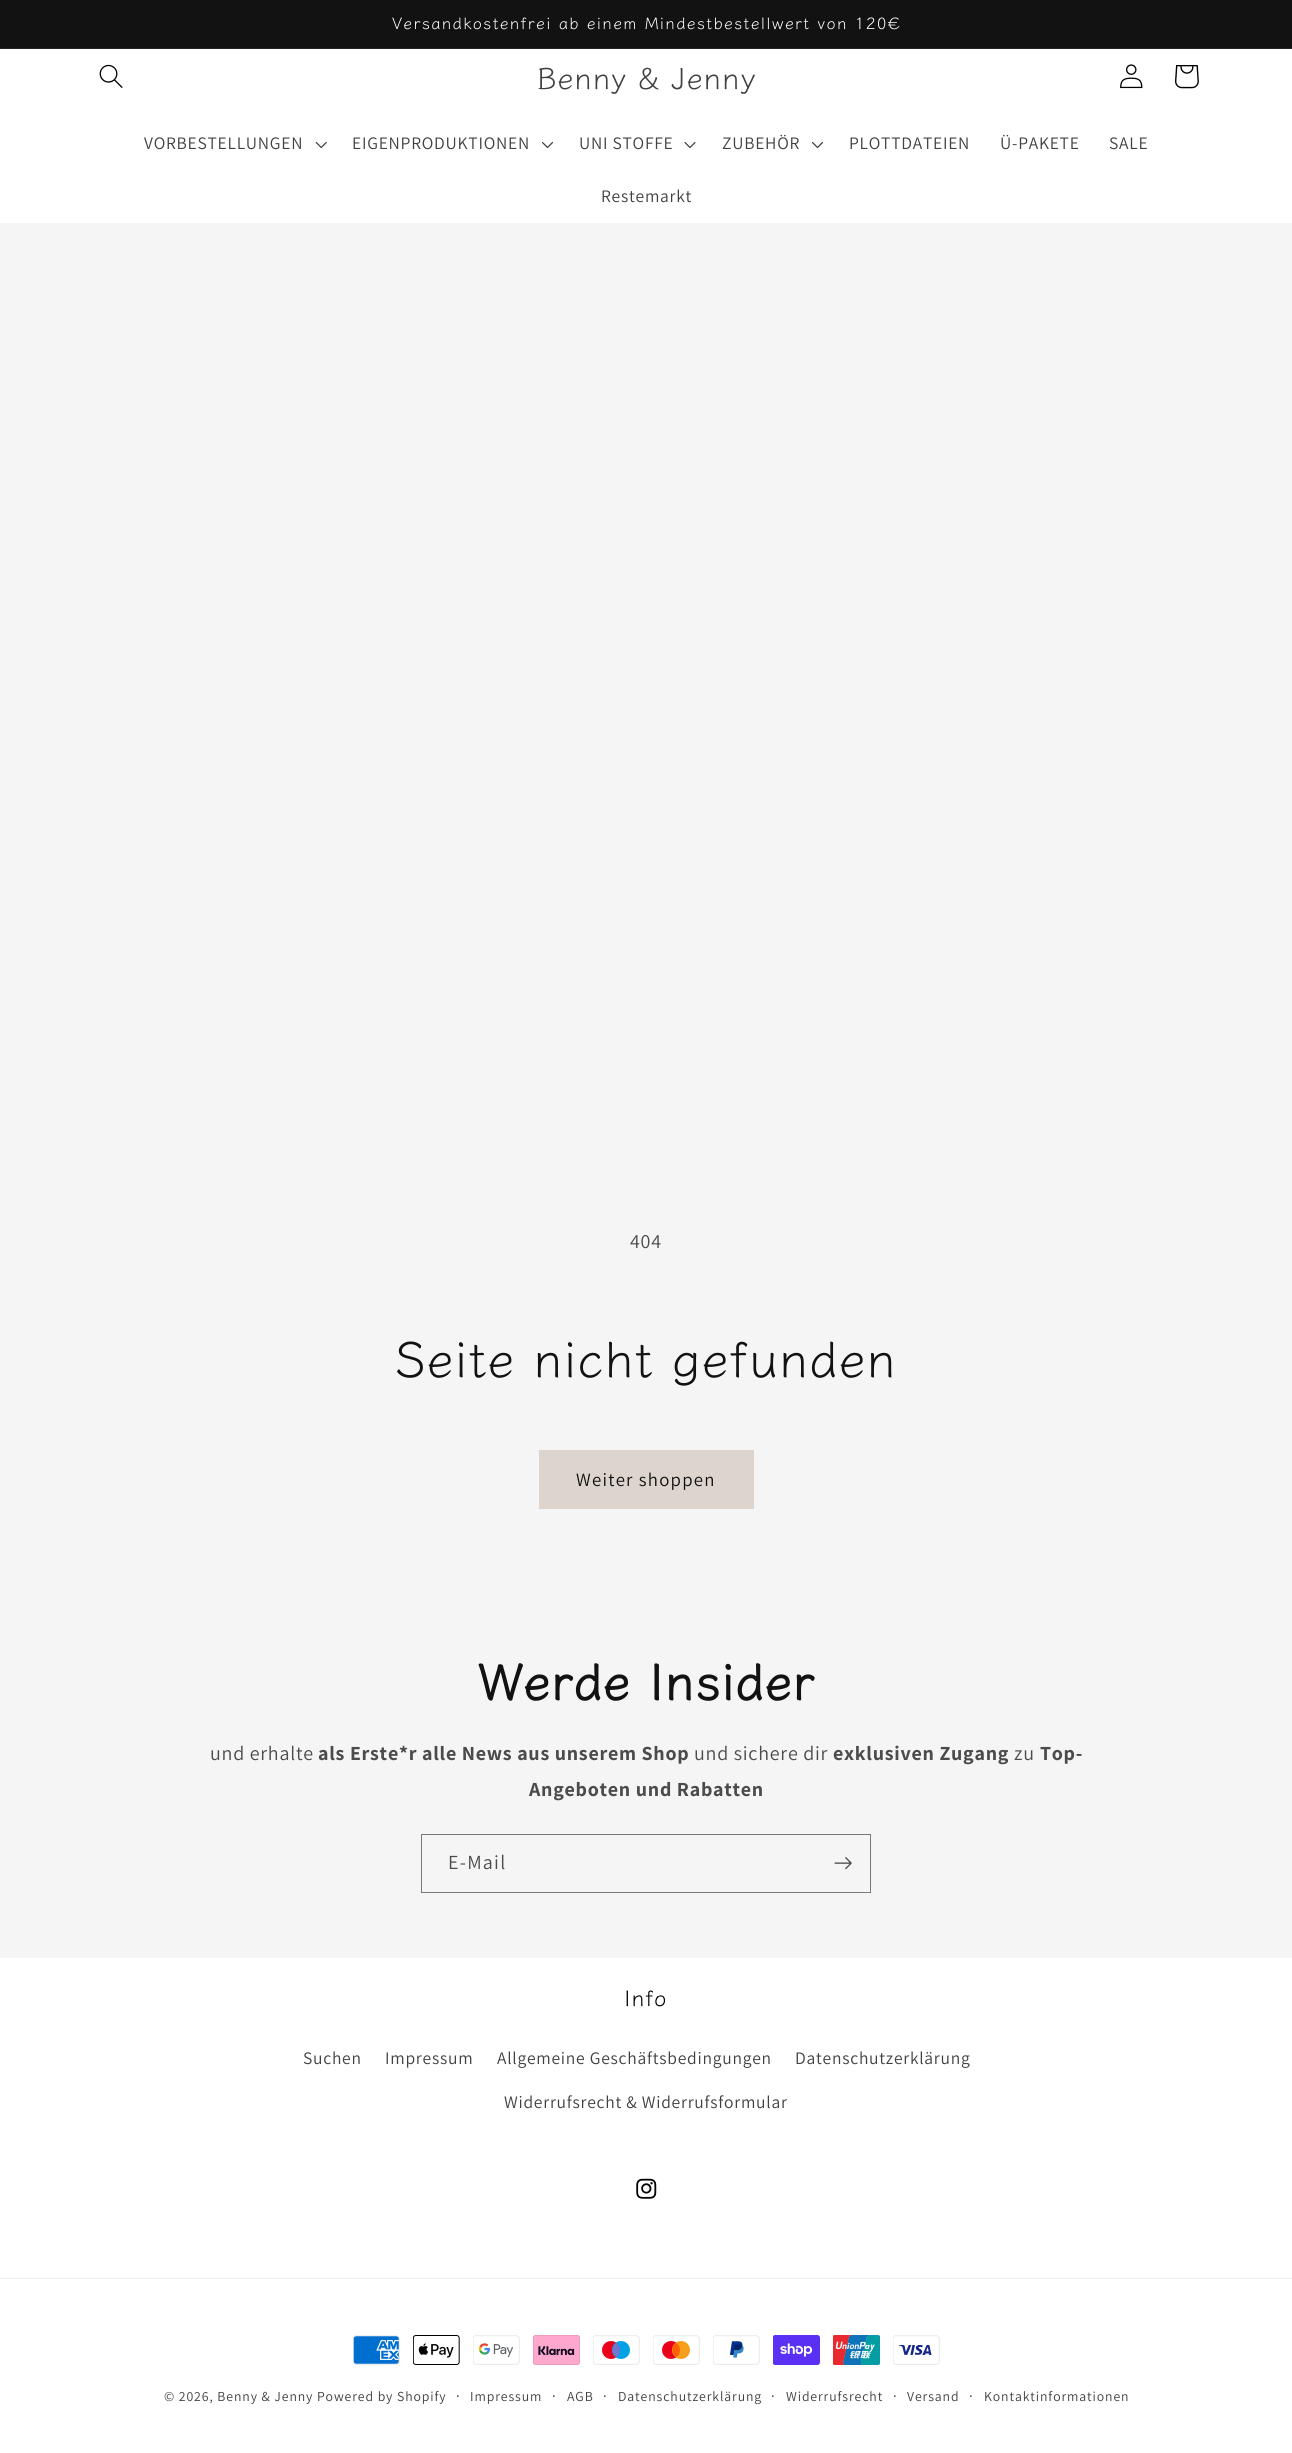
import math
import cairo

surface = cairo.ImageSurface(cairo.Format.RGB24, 1292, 2453)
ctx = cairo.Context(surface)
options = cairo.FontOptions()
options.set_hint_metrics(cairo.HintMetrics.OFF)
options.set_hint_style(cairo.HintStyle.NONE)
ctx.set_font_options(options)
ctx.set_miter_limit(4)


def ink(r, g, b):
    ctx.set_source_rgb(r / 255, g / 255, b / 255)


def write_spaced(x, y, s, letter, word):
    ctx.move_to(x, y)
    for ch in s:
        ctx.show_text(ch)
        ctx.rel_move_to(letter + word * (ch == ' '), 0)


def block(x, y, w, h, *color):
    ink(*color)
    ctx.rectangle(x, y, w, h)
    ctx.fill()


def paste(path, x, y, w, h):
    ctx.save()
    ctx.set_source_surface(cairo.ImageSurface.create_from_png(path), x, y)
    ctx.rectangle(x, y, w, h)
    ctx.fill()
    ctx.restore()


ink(245, 245, 245)
ctx.paint()
block(0, 0, 1292, 48, 18, 18, 18)
block(0, 48, 1292, 1, 37, 37, 37)
ctx.select_font_face("Klee One")
ctx.set_font_size(16.25)
ink(255, 255, 255)
write_spaced(392, 29, "Versandkostenfrei ab einem Mindestbestellwert von 120€", 1.25, 0)
block(0, 49, 1292, 174, 255, 255, 255)
paste("pic1.png", 99, 64, 24, 24)
ctx.set_font_size(30)
ink(64, 64, 64)
write_spaced(537, 89, "Benny & Jenny", 0.75, 0)
paste("pic2.png", 1120, 64, 23, 25)
paste("pic3.png", 1175, 65, 24, 24)
ctx.select_font_face("Assistant")
ctx.set_font_size(17.5)
write_spaced(144, 149, "VORBESTELLUNGEN", 0.75, 0)
paste("pic4.png", 315, 141, 12, 8)
write_spaced(352, 149, "EIGENPRODUKTIONEN", 0.75, 0)
paste("pic5.png", 541, 141, 13, 8)
write_spaced(579, 149, "UNI STOFFE", 0.75, 0)
paste("pic6.png", 684, 142, 12, 6)
write_spaced(722, 149, "ZUBEHÖR", 0.75, 0)
paste("pic5.png", 811, 141, 13, 8)
write_spaced(849, 149, "PLOTTDATEIEN", 0.75, 0)
write_spaced(1000, 149, "Ü-PAKETE", 0.75, 0)
write_spaced(1109, 149, "SALE", 0.75, 0)
write_spaced(601, 202, "Restemarkt", 0.75, 0)
ctx.set_font_size(20)
ink(75, 75, 75)
write_spaced(630, 1248, "404", 0.75, 0)
ctx.select_font_face("Klee One")
ctx.set_font_size(50)
ink(18, 18, 18)
write_spaced(395, 1377, "Seite nicht gefunden", 0.75, 0)
block(539, 1450, 215, 59, 221, 213, 205)
ctx.select_font_face("Assistant")
ctx.set_font_size(18.75)
ink(18, 18, 18)
write_spaced(576, 1486, "Weiter shoppen", 1.25, 0)
ctx.select_font_face("Klee One", cairo.FontSlant.NORMAL, cairo.FontWeight.BOLD)
ctx.set_font_size(50)
write_spaced(478, 1700, "Werde Insider", 0.75, 0)
ctx.select_font_face("Assistant")
ctx.set_font_size(20)
ink(75, 75, 75)
write_spaced(210, 1760, "und erhalte", 0.75, 0)
ctx.select_font_face("Assistant", cairo.FontSlant.NORMAL, cairo.FontWeight.BOLD)
write_spaced(318, 1760, "als Erste*r alle News aus unserem Shop", 0.75, 0)
ctx.select_font_face("Assistant")
write_spaced(694, 1760, "und sichere dir", 0.75, 0)
ctx.select_font_face("Assistant", cairo.FontSlant.NORMAL, cairo.FontWeight.BOLD)
write_spaced(833, 1760, "exklusiven Zugang", 0.75, 0)
ctx.select_font_face("Assistant")
write_spaced(1014, 1760, "zu", 0.75, 0)
ctx.select_font_face("Assistant", cairo.FontSlant.NORMAL, cairo.FontWeight.BOLD)
write_spaced(1040, 1760, "Top-", 0.75, 0)
write_spaced(529, 1796, "Angeboten und Rabatten", 0.75, 0)
ctx.rectangle(421.5, 1834.5, 449, 58)
ink(120, 120, 120)
ctx.set_line_width(1)
ctx.stroke()
ctx.select_font_face("Assistant")
ink(75, 75, 75)
write_spaced(448, 1869, "E-Mail", 1.25, 0)
paste("pic7.png", 834, 1857, 18, 13)
block(0, 1958, 1292, 495, 255, 255, 255)
ctx.select_font_face("Klee One")
ctx.set_font_size(22)
ink(0, 0, 0)
write_spaced(624, 2006, "Info", 0.75, 0)
ctx.select_font_face("Assistant")
ctx.set_font_size(17.5)
ink(64, 64, 64)
write_spaced(303, 2064, "Suchen", 0.75, 0)
write_spaced(385, 2064, "Impressum", 0.75, 0)
write_spaced(497, 2064, "Allgemeine Geschäftsbedingungen", 0.75, 0)
write_spaced(795, 2064, "Datenschutzerklärung", 0.75, 0)
write_spaced(504, 2108, "Widerrufsrecht & Widerrufsformular", 0.75, 0)
paste("pic8.png", 636, 2178, 21, 21)
block(0, 2278, 1292, 1, 235, 235, 235)
paste("pic9.png", 353, 2335, 47, 30)
paste("pic10.png", 413, 2335, 47, 30)
paste("pic11.png", 473, 2335, 47, 30)
paste("pic12.png", 533, 2335, 47, 30)
paste("pic13.png", 593, 2335, 47, 30)
paste("pic14.png", 653, 2335, 47, 30)
paste("pic15.png", 713, 2335, 47, 30)
paste("pic16.png", 773, 2335, 47, 30)
paste("pic17.png", 833, 2335, 47, 30)
paste("pic18.png", 893, 2335, 47, 30)
ctx.set_font_size(13.75)
ink(64, 64, 64)
write_spaced(164, 2401, "© 2026, Benny & Jenny Powered by Shopify", 0.9, 0)
ctx.set_font_size(15)
write_spaced(456, 2401, "·", 0.9, 0)
ctx.set_font_size(13.75)
write_spaced(470, 2401, "Impressum", 0.9, 0)
ctx.set_font_size(15)
write_spaced(552, 2401, "·", 0.9, 0)
ctx.set_font_size(13.75)
write_spaced(567, 2401, "AGB", 0.9, 0)
ctx.set_font_size(15)
write_spaced(603, 2401, "·", 0.9, 0)
ctx.set_font_size(13.75)
write_spaced(618, 2401, "Datenschutzerklärung", 0.9, 0)
ctx.set_font_size(15)
write_spaced(771, 2401, "·", 0.9, 0)
ctx.set_font_size(13.75)
write_spaced(786, 2401, "Widerrufsrecht", 0.9, 0)
ctx.set_font_size(15)
write_spaced(893, 2401, "·", 0.9, 0)
ctx.set_font_size(13.75)
write_spaced(907, 2401, "Versand", 0.9, 0)
ctx.set_font_size(15)
write_spaced(969, 2401, "·", 0.9, 0)
ctx.set_font_size(13.75)
write_spaced(984, 2401, "Kontaktinformationen", 0.9, 0)
surface.write_to_png("screenshot.png")
